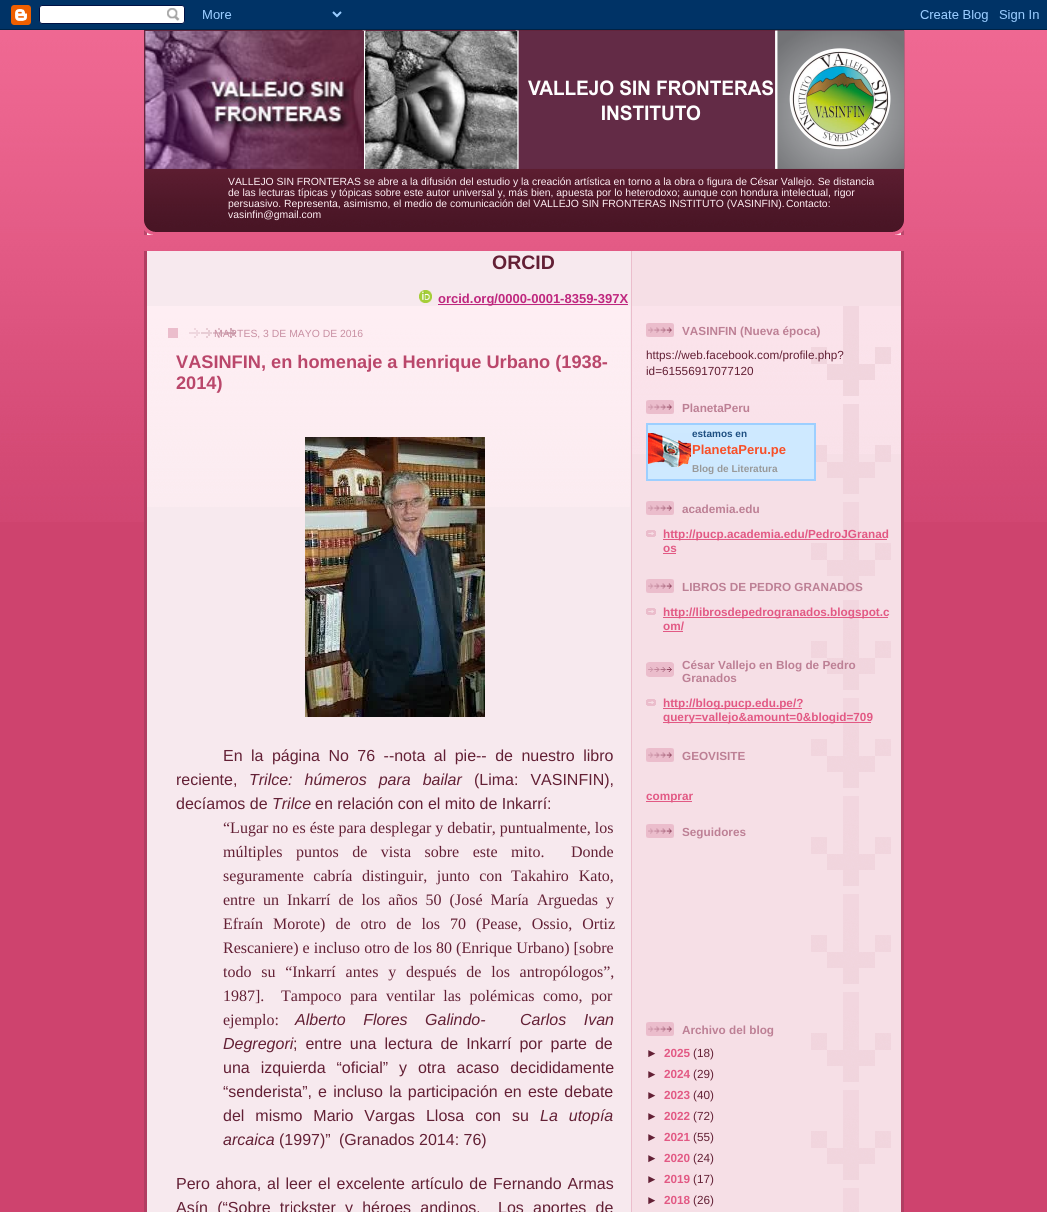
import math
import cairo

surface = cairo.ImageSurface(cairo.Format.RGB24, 1047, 1212)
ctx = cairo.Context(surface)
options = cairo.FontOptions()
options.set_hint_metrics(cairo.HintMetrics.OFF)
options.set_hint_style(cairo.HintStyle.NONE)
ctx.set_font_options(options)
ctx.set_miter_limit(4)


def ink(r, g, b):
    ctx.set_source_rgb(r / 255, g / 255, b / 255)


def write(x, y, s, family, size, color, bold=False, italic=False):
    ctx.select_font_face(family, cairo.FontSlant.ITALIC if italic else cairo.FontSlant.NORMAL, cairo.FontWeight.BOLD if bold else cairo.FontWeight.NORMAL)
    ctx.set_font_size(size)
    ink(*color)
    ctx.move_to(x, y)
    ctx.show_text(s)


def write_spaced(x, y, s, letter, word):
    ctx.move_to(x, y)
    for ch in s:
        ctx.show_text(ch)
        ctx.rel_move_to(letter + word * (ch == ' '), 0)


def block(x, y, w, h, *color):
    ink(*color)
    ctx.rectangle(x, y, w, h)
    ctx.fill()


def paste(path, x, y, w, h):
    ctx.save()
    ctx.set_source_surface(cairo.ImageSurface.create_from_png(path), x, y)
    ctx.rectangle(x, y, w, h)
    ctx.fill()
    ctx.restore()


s1 = dict(family="Liberation Sans", size=10.4, color=(254, 238, 243))
s2 = dict(family="Liberation Sans", size=19.5, color=(99, 32, 53), bold=True)
s3 = dict(family="Liberation Sans", size=13, color=(191, 39, 126), bold=True)
s4 = dict(family="Liberation Sans", size=10.4, color=(200, 143, 162))
s5 = dict(family="Liberation Sans", size=18.2, color=(186, 71, 107), bold=True)
s6 = dict(family="Liberation Sans", size=16, color=(99, 32, 53))
s7 = dict(family="Liberation Sans", size=16, color=(99, 32, 53), italic=True)
s8 = dict(family="Liberation Serif", size=16, color=(99, 32, 53))
s9 = dict(family="Liberation Sans", size=11.75, color=(189, 128, 149), bold=True)
s10 = dict(family="Liberation Sans", size=11.75, color=(99, 32, 53))
s11 = dict(family="Liberation Sans", size=10, color=(30, 79, 129), bold=True)
s12 = dict(family="Liberation Sans", size=13, color=(248, 79, 39), bold=True)
s13 = dict(family="Liberation Sans", size=10, color=(153, 153, 153), bold=True)
s14 = dict(family="Liberation Sans", size=11.75, color=(226, 89, 132), bold=True)
s15 = dict(family="Liberation Sans", size=11.75, color=(99, 32, 53), bold=True)

ink(206, 67, 110)
ctx.paint()
paste("pic1.png", 0, 30, 1047, 492)
paste("pic2.png", 0, 0, 1047, 30)
paste("pic3.png", 144, 220, 760, 15)
block(144, 30, 760, 131, 99, 32, 53)
paste("pic4.png", 144, 161, 760, 59)
paste("pic5.png", 144, 30, 761, 139)
write(228, 185, "VALLEJO SIN FRONTERAS se abre a la difusión del estudio y la creación artística en torno a la obra o figura de César Vallejo. Se distancia", **s1)
write(228, 196, "de las lecturas típicas y tópicas sobre este autor universal y, más bien, apuesta por lo heterodoxo; aunque con hondura intelectual, rigor", **s1)
write(228, 207, "persuasivo. Representa, asimismo, el medio de comunicación del VALLEJO SIN FRONTERAS INSTITUTO (VASINFIN).", **s1)
write(786, 207, "Contacto:", **s1)
write(228, 218, "vasinfin@gmail.com", **s1)
paste("pic6.png", 144, 251, 760, 961)
write(492, 269, "ORCID", **s2)
paste("pic7.png", 419, 290, 13, 13)
block(438, 304, 190, 1, 191, 39, 126)
write(438, 303, "orcid.org/0000-0001-8359-397X", **s3)
paste("pic8.png", 147, 306, 483, 201)
block(168, 328, 10, 10, 235, 189, 204)
paste("pic9.png", 189, 328, 47, 10)
write(214, 337, "MARTES, 3 DE MAYO DE 2016", **s4)
write(176, 368, "VASINFIN, en homenaje a Henrique Urbano (1938-", **s5)
write(176, 389, "2014)", **s5)
paste("pic10.png", 305, 437, 180, 280)
ctx.select_font_face("Liberation Sans")
ctx.set_font_size(16)
ink(99, 32, 53)
write_spaced(223, 761, "En la página No 76 --nota al pie-- de nuestro libro", 0, 4)
write(176, 785, "reciente,", **s6)
ctx.select_font_face("Liberation Sans", cairo.FontSlant.ITALIC)
write_spaced(249, 785, "Trilce: húmeros para bailar", 0, 7.5)
ctx.select_font_face("Liberation Sans")
write_spaced(474, 785, "(Lima: VASINFIN),", 0, 7.5)
write(176, 809, "decíamos de", **s6)
write(272, 809, "Trilce", **s7)
write(315, 809, "en relación con el mito de Inkarrí:", **s6)
write(223, 833, "“Lugar no es éste para desplegar y debatir, puntualmente, los", **s8)
write_spaced(223, 857, "múltiples puntos de vista sobre este mito.", 0, 9.5)
write(571, 857, "Donde", **s8)
write_spaced(223, 881, "seguramente cabría distinguir, junto con", 0, 5.5)
write_spaced(511, 881, "Takahiro Kato,", 0, 6)
write_spaced(223, 905, "entre un Inkarrí de los años 50 (José María Arguedas y", 0, 4)
write_spaced(223, 929, "Efraín Morote) de otro de los 70 (Pease, Ossio, Ortiz", 0, 6)
write_spaced(223, 953, "Rescaniere) e incluso otro de los 80 (Enrique Urbano) [sobre", 0, 0.1)
write_spaced(223, 977, "todo su “Inkarrí antes y después de los antropólogos”,", 0, 5.75)
write(223, 1001, "1987].", **s8)
write_spaced(281, 1001, "Tampoco para ventilar las polémicas como, por", 0, 4.5)
write(223, 1025, "ejemplo:", **s8)
ctx.select_font_face("Liberation Sans", cairo.FontSlant.ITALIC)
write_spaced(295, 1025, "Alberto Flores Galindo-", 0, 13)
write_spaced(520, 1025, "Carlos Ivan", 0, 13)
write(223, 1049, "Degregori", **s7)
ctx.select_font_face("Liberation Sans")
write_spaced(293, 1049, "; entre una lectura de Inkarrí por parte de", 0, 3.5)
write_spaced(223, 1073, "una izquierda “oficial” y otra acaso decididamente", 0, 6.5)
write_spaced(223, 1097, "“senderista”, e incluso la participación en este debate", 0, 1.75)
write_spaced(223, 1121, "del mismo Mario Vargas Llosa con su", 0, 6.5)
ctx.select_font_face("Liberation Sans", cairo.FontSlant.ITALIC)
write_spaced(540, 1121, "La utopía", 0, 6.5)
write(223, 1145, "arcaica", **s7)
write(279, 1145, "(1997)”", **s6)
write(339, 1145, "(Granados 2014: 76)", **s6)
write_spaced(176, 1189, "Pero ahora, al leer el excelente artículo de Fernando Armas", 0, 1.5)
write_spaced(176, 1213, "Asín (“Sobre trickster y héroes andinos.", 0, 4.75)
write_spaced(498, 1213, "Los aportes de", 0, 4.75)
paste("pic11.png", 632, 306, 269, 148)
paste("pic12.png", 811, 306, 80, 906)
paste("pic13.png", 646, 323, 28, 14)
write(682, 335, "VASINFIN (Nueva época)", **s9)
write(646, 359, "https://web.facebook.com/profile.php?", **s10)
write(646, 375, "id=61556917077120", **s10)
paste("pic14.png", 646, 400, 28, 14)
write(682, 412, "PlanetaPeru", **s9)
block(646, 423, 170, 58, 157, 207, 255)
block(648, 425, 166, 54, 206, 233, 255)
paste("pic15.png", 648, 433, 43, 34)
write(692, 437, "estamos en", **s11)
write(692, 454, "PlanetaPeru.pe", **s12)
write(692, 472, "Blog de Literatura", **s13)
paste("pic16.png", 646, 501, 28, 14)
write(682, 513, "academia.edu", **s9)
paste("pic17.png", 646, 530, 10, 7)
block(663, 539, 224, 1, 226, 89, 132)
write(663, 538, "http://pucp.academia.edu/PedroJGranad", **s14)
write(663, 552, "os", **s14)
block(663, 553, 13, 1, 226, 89, 132)
paste("pic16.png", 646, 579, 28, 14)
write(682, 591, "LIBROS DE PEDRO GRANADOS", **s9)
paste("pic17.png", 646, 608, 10, 7)
block(663, 617, 225, 1, 226, 89, 132)
write(663, 616, "http://librosdepedrogranados.blogspot.c", **s14)
write(663, 630, "om/", **s14)
block(663, 631, 20, 1, 226, 89, 132)
paste("pic18.png", 646, 662, 28, 15)
write(682, 669, "César Vallejo en Blog de Pedro", **s9)
write(682, 682, "Granados", **s9)
paste("pic17.png", 646, 699, 10, 7)
block(663, 708, 139, 1, 226, 89, 132)
write(663, 707, "http://blog.pucp.edu.pe/?", **s14)
block(663, 722, 208, 1, 226, 89, 132)
write(663, 721, "query=vallejo&amount=0&blogid=709", **s14)
paste("pic16.png", 646, 748, 28, 14)
write(682, 760, "GEOVISITE", **s9)
block(646, 801, 46, 1, 226, 89, 132)
write(646, 800, "comprar", **s14)
paste("pic16.png", 646, 824, 28, 14)
write(682, 836, "Seguidores", **s9)
paste("pic16.png", 646, 1022, 28, 14)
write(682, 1034, "Archivo del blog", **s9)
write(646, 1057, "►", **s15)
write(664, 1057, "2025", **s14)
write(693, 1057, "(18)", **s10)
write(646, 1078, "►", **s15)
write(664, 1078, "2024", **s14)
write(693, 1078, "(29)", **s10)
write(646, 1099, "►", **s15)
write(664, 1099, "2023", **s14)
write(693, 1099, "(40)", **s10)
write(646, 1120, "►", **s15)
write(664, 1120, "2022", **s14)
write(693, 1120, "(72)", **s10)
write(646, 1141, "►", **s15)
write(664, 1141, "2021", **s14)
write(693, 1141, "(55)", **s10)
write(646, 1162, "►", **s15)
write(664, 1162, "2020", **s14)
write(693, 1162, "(24)", **s10)
write(646, 1183, "►", **s15)
write(664, 1183, "2019", **s14)
write(693, 1183, "(17)", **s10)
write(646, 1204, "►", **s15)
write(664, 1204, "2018", **s14)
write(693, 1204, "(26)", **s10)
surface.write_to_png("screenshot.png")
